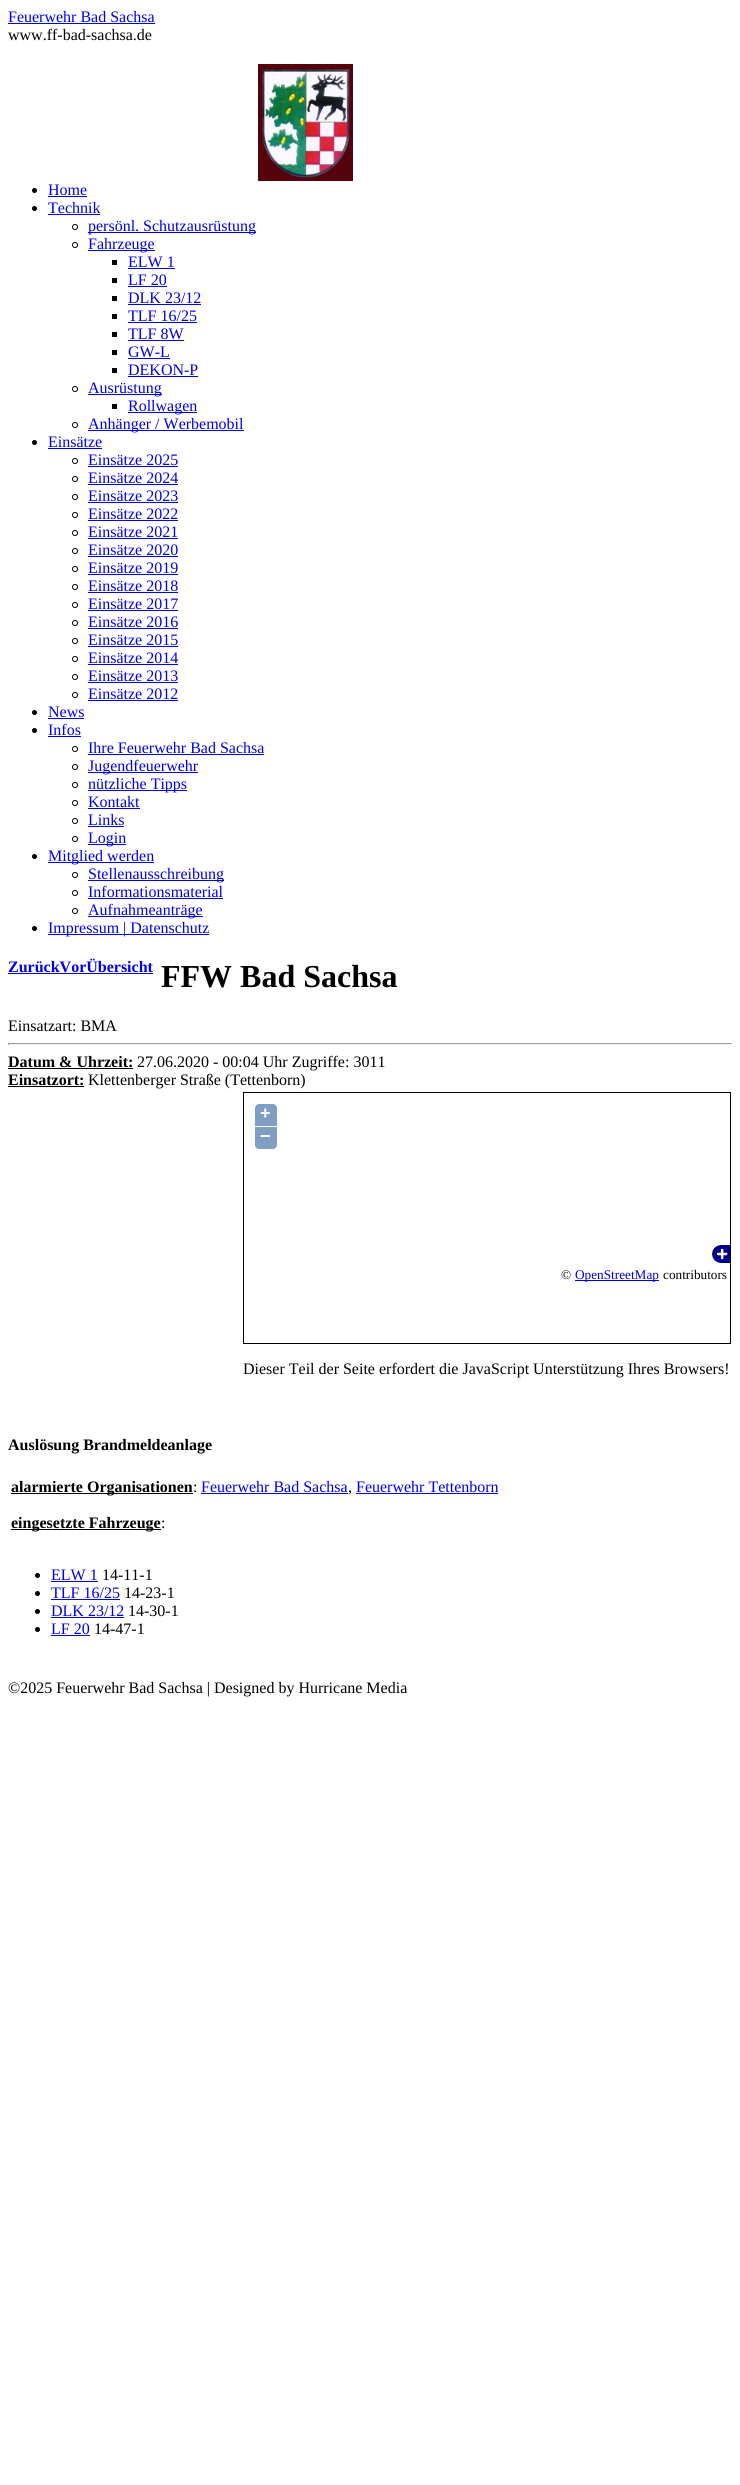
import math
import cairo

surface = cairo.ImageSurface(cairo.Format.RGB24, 740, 2485)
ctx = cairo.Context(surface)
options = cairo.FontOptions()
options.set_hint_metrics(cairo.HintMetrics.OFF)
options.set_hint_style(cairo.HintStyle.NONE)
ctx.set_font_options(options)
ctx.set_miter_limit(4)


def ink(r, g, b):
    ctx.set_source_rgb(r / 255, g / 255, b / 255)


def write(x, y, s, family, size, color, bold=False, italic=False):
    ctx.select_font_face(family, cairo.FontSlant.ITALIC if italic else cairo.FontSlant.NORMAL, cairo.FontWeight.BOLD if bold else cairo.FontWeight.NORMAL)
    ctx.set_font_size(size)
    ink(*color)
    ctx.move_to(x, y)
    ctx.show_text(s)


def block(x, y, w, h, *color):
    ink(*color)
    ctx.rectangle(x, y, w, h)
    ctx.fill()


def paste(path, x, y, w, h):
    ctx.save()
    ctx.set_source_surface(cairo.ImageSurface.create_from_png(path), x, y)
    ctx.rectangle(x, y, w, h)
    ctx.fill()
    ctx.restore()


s1 = dict(family="Liberation Serif", size=16, color=(0, 0, 238))
s2 = dict(family="Liberation Serif", size=16, color=(0, 0, 0))
s3 = dict(family="Liberation Serif", size=16, color=(0, 0, 238), bold=True)
s4 = dict(family="Liberation Serif", size=32, color=(0, 0, 0), bold=True)
s5 = dict(family="Liberation Serif", size=16, color=(0, 0, 0), bold=True)
s6 = dict(family="Liberation Sans", size=18, color=(255, 255, 255), bold=True)
s7 = dict(family="Liberation Serif", size=13.25, color=(0, 0, 0))
s8 = dict(family="Liberation Serif", size=13.25, color=(0, 0, 238))

ink(255, 255, 255)
ctx.paint()
write(8, 22, "Feuerwehr Bad Sachsa", **s1)
block(8, 23, 147, 1, 0, 0, 238)
write(8, 40, "www.ff-bad-sachsa.de", **s2)
paste("pic1.png", 258, 64, 95, 117)
ctx.arc(34.5, 190.5, 2.5, 0, 2 * math.pi)
ctx.fill()
write(48, 195, "Home", **s1)
block(48, 196, 39, 1, 0, 0, 238)
ink(0, 0, 0)
ctx.new_path()
ctx.arc(34.5, 208.5, 2.5, 0, 2 * math.pi)
ctx.fill()
write(48, 213, "Technik", **s1)
block(48, 214, 52, 1, 0, 0, 238)
ctx.new_path()
ctx.arc(75, 227, 2.5, 0, 2 * math.pi)
ink(0, 0, 0)
ctx.set_line_width(1)
ctx.stroke()
block(88, 232, 168, 1, 0, 0, 238)
write(88, 231, "persönl. Schutzausrüstung", **s1)
ctx.new_path()
ctx.arc(75, 245, 2.5, 0, 2 * math.pi)
ink(0, 0, 0)
ctx.stroke()
block(88, 250, 67, 1, 0, 0, 238)
write(88, 249, "Fahrzeuge", **s1)
block(112, 260, 5, 5, 0, 0, 0)
write(128, 267, "ELW 1", **s1)
block(128, 268, 47, 1, 0, 0, 238)
block(112, 278, 5, 5, 0, 0, 0)
write(128, 285, "LF 20", **s1)
block(128, 286, 39, 1, 0, 0, 238)
block(112, 296, 5, 5, 0, 0, 0)
write(128, 303, "DLK 23/12", **s1)
block(128, 304, 73, 1, 0, 0, 238)
block(112, 314, 5, 5, 0, 0, 0)
write(128, 321, "TLF 16/25", **s1)
block(128, 322, 69, 1, 0, 0, 238)
block(112, 332, 5, 5, 0, 0, 0)
write(128, 339, "TLF 8W", **s1)
block(128, 340, 56, 1, 0, 0, 238)
block(112, 350, 5, 5, 0, 0, 0)
write(128, 357, "GW-L", **s1)
block(128, 358, 42, 1, 0, 0, 238)
block(112, 368, 5, 5, 0, 0, 0)
write(128, 375, "DEKON-P", **s1)
block(128, 376, 70, 1, 0, 0, 238)
ctx.new_path()
ctx.arc(75, 389, 2.5, 0, 2 * math.pi)
ink(0, 0, 0)
ctx.stroke()
block(88, 394, 74, 1, 0, 0, 238)
write(88, 393, "Ausrüstung", **s1)
block(112, 404, 5, 5, 0, 0, 0)
block(128, 412, 69, 1, 0, 0, 238)
write(128, 411, "Rollwagen", **s1)
ctx.new_path()
ctx.arc(75, 425, 2.5, 0, 2 * math.pi)
ink(0, 0, 0)
ctx.stroke()
block(88, 430, 156, 1, 0, 0, 238)
write(88, 429, "Anhänger / Werbemobil", **s1)
ink(0, 0, 0)
ctx.new_path()
ctx.arc(34.5, 442.5, 2.5, 0, 2 * math.pi)
ctx.fill()
write(48, 447, "Einsätze", **s1)
block(48, 448, 54, 1, 0, 0, 238)
ctx.new_path()
ctx.arc(75, 461, 2.5, 0, 2 * math.pi)
ink(0, 0, 0)
ctx.stroke()
write(88, 465, "Einsätze 2025", **s1)
block(88, 466, 90, 1, 0, 0, 238)
ctx.new_path()
ctx.arc(75, 479, 2.5, 0, 2 * math.pi)
ink(0, 0, 0)
ctx.stroke()
write(88, 483, "Einsätze 2024", **s1)
block(88, 484, 90, 1, 0, 0, 238)
ctx.new_path()
ctx.arc(75, 497, 2.5, 0, 2 * math.pi)
ink(0, 0, 0)
ctx.stroke()
write(88, 501, "Einsätze 2023", **s1)
block(88, 502, 90, 1, 0, 0, 238)
ctx.new_path()
ctx.arc(75, 515, 2.5, 0, 2 * math.pi)
ink(0, 0, 0)
ctx.stroke()
write(88, 519, "Einsätze 2022", **s1)
block(88, 520, 90, 1, 0, 0, 238)
ctx.new_path()
ctx.arc(75, 533, 2.5, 0, 2 * math.pi)
ink(0, 0, 0)
ctx.stroke()
write(88, 537, "Einsätze 2021", **s1)
block(88, 538, 90, 1, 0, 0, 238)
ctx.new_path()
ctx.arc(75, 551, 2.5, 0, 2 * math.pi)
ink(0, 0, 0)
ctx.stroke()
write(88, 555, "Einsätze 2020", **s1)
block(88, 556, 90, 1, 0, 0, 238)
ctx.new_path()
ctx.arc(75, 569, 2.5, 0, 2 * math.pi)
ink(0, 0, 0)
ctx.stroke()
write(88, 573, "Einsätze 2019", **s1)
block(88, 574, 90, 1, 0, 0, 238)
ctx.new_path()
ctx.arc(75, 587, 2.5, 0, 2 * math.pi)
ink(0, 0, 0)
ctx.stroke()
write(88, 591, "Einsätze 2018", **s1)
block(88, 592, 90, 1, 0, 0, 238)
ctx.new_path()
ctx.arc(75, 605, 2.5, 0, 2 * math.pi)
ink(0, 0, 0)
ctx.stroke()
write(88, 609, "Einsätze 2017", **s1)
block(88, 610, 90, 1, 0, 0, 238)
ctx.new_path()
ctx.arc(75, 623, 2.5, 0, 2 * math.pi)
ink(0, 0, 0)
ctx.stroke()
write(88, 627, "Einsätze 2016", **s1)
block(88, 628, 90, 1, 0, 0, 238)
ctx.new_path()
ctx.arc(75, 641, 2.5, 0, 2 * math.pi)
ink(0, 0, 0)
ctx.stroke()
write(88, 645, "Einsätze 2015", **s1)
block(88, 646, 90, 1, 0, 0, 238)
ctx.new_path()
ctx.arc(75, 659, 2.5, 0, 2 * math.pi)
ink(0, 0, 0)
ctx.stroke()
write(88, 663, "Einsätze 2014", **s1)
block(88, 664, 90, 1, 0, 0, 238)
ctx.new_path()
ctx.arc(75, 677, 2.5, 0, 2 * math.pi)
ink(0, 0, 0)
ctx.stroke()
write(88, 681, "Einsätze 2013", **s1)
block(88, 682, 90, 1, 0, 0, 238)
ctx.new_path()
ctx.arc(75, 695, 2.5, 0, 2 * math.pi)
ink(0, 0, 0)
ctx.stroke()
write(88, 699, "Einsätze 2012", **s1)
block(88, 700, 90, 1, 0, 0, 238)
ink(0, 0, 0)
ctx.new_path()
ctx.arc(34.5, 712.5, 2.5, 0, 2 * math.pi)
ctx.fill()
write(48, 717, "News", **s1)
block(48, 718, 36, 1, 0, 0, 238)
ink(0, 0, 0)
ctx.new_path()
ctx.arc(34.5, 730.5, 2.5, 0, 2 * math.pi)
ctx.fill()
write(48, 735, "Infos", **s1)
block(48, 736, 33, 1, 0, 0, 238)
ctx.new_path()
ctx.arc(75, 749, 2.5, 0, 2 * math.pi)
ink(0, 0, 0)
ctx.stroke()
write(88, 753, "Ihre Feuerwehr Bad Sachsa", **s1)
block(88, 754, 176, 1, 0, 0, 238)
ctx.new_path()
ctx.arc(75, 767, 2.5, 0, 2 * math.pi)
ink(0, 0, 0)
ctx.stroke()
block(88, 772, 110, 1, 0, 0, 238)
write(88, 771, "Jugendfeuerwehr", **s1)
ctx.new_path()
ctx.arc(75, 785, 2.5, 0, 2 * math.pi)
ink(0, 0, 0)
ctx.stroke()
block(88, 790, 99, 1, 0, 0, 238)
write(88, 789, "nützliche Tipps", **s1)
ctx.new_path()
ctx.arc(75, 803, 2.5, 0, 2 * math.pi)
ink(0, 0, 0)
ctx.stroke()
write(88, 807, "Kontakt", **s1)
block(88, 808, 52, 1, 0, 0, 238)
ctx.new_path()
ctx.arc(75, 821, 2.5, 0, 2 * math.pi)
ink(0, 0, 0)
ctx.stroke()
write(88, 825, "Links", **s1)
block(88, 826, 36, 1, 0, 0, 238)
ctx.new_path()
ctx.arc(75, 839, 2.5, 0, 2 * math.pi)
ink(0, 0, 0)
ctx.stroke()
block(88, 844, 38, 1, 0, 0, 238)
write(88, 843, "Login", **s1)
ink(0, 0, 0)
ctx.new_path()
ctx.arc(34.5, 856.5, 2.5, 0, 2 * math.pi)
ctx.fill()
block(48, 862, 106, 1, 0, 0, 238)
write(48, 861, "Mitglied werden", **s1)
ctx.new_path()
ctx.arc(75, 875, 2.5, 0, 2 * math.pi)
ink(0, 0, 0)
ctx.stroke()
block(88, 880, 136, 1, 0, 0, 238)
write(88, 879, "Stellenausschreibung", **s1)
ctx.new_path()
ctx.arc(75, 893, 2.5, 0, 2 * math.pi)
ink(0, 0, 0)
ctx.stroke()
write(88, 897, "Informationsmaterial", **s1)
block(88, 898, 135, 1, 0, 0, 238)
ctx.new_path()
ctx.arc(75, 911, 2.5, 0, 2 * math.pi)
ink(0, 0, 0)
ctx.stroke()
block(88, 916, 115, 1, 0, 0, 238)
write(88, 915, "Aufnahmeanträge", **s1)
ink(0, 0, 0)
ctx.new_path()
ctx.arc(34.5, 928.5, 2.5, 0, 2 * math.pi)
ctx.fill()
block(48, 934, 161, 1, 0, 0, 238)
write(48, 933, "Impressum | Datenschutz", **s1)
write(8, 972, "ZurückVorÜbersicht", **s3)
block(8, 973, 145, 1, 0, 0, 238)
write(161, 987, "FFW Bad Sachsa", **s4)
write(8, 1031, "Einsatzart: BMA", **s2)
block(8, 1043, 724, 1, 159, 159, 159)
block(731, 1043, 1, 2, 238, 238, 238)
block(8, 1044, 724, 1, 238, 238, 238)
block(8, 1043, 1, 2, 159, 159, 159)
write(8, 1067, "Datum & Uhrzeit:", **s5)
block(8, 1068, 125, 1, 0, 0, 0)
write(137, 1067, "27.06.2020 - 00:04 Uhr Zugriffe: 3011", **s2)
write(8, 1085, "Einsatzort:", **s5)
block(8, 1086, 76, 1, 0, 0, 0)
write(88, 1085, "Klettenberger Straße (Tettenborn)", **s2)
ctx.rectangle(243.5, 1092.5, 487, 251)
ctx.stroke()
ink(128, 158, 196)
ctx.new_path()
ctx.move_to(259, 1104)
ctx.line_to(273, 1104)
ctx.curve_to(275, 1104, 277, 1106, 277, 1108)
ctx.line_to(277, 1126)
ctx.line_to(255, 1126)
ctx.line_to(255, 1108)
ctx.curve_to(255, 1106, 257, 1104, 259, 1104)
ctx.close_path()
ctx.fill()
write(260, 1119, "+", **s6)
ink(128, 158, 196)
ctx.new_path()
ctx.move_to(255, 1127)
ctx.line_to(277, 1127)
ctx.line_to(277, 1145)
ctx.curve_to(277, 1147, 275, 1149, 273, 1149)
ctx.line_to(259, 1149)
ctx.curve_to(257, 1149, 255, 1147, 255, 1145)
ctx.close_path()
ctx.fill()
write(260, 1142, "−", **s6)
paste("pic2.png", 712, 1245, 18, 18)
write(561, 1279, "©", **s7)
block(575, 1280, 84, 1, 0, 0, 238)
write(575, 1279, "OpenStreetMap", **s8)
write(663, 1279, "contributors", **s7)
write(243, 1374, "Dieser Teil der Seite erfordert die JavaScript Unterstützung Ihres Browsers!", **s2)
write(8, 1450, "Auslösung Brandmeldeanlage", **s5)
block(11, 1493, 182, 1, 0, 0, 0)
write(11, 1492, "alarmierte Organisationen", **s5)
write(193, 1492, ":", **s2)
write(201, 1492, "Feuerwehr Bad Sachsa", **s1)
block(201, 1493, 147, 1, 0, 0, 238)
write(348, 1492, ",", **s2)
write(356, 1492, "Feuerwehr Tettenborn", **s1)
block(356, 1493, 142, 1, 0, 0, 238)
block(11, 1529, 150, 1, 0, 0, 0)
write(11, 1528, "eingesetzte Fahrzeuge", **s5)
write(161, 1528, ":", **s2)
ctx.new_path()
ctx.arc(37.5, 1575.5, 2.5, 0, 2 * math.pi)
ctx.fill()
write(51, 1580, "ELW 1", **s1)
block(51, 1581, 47, 1, 0, 0, 238)
write(102, 1580, "14-11-1", **s2)
ctx.new_path()
ctx.arc(37.5, 1593.5, 2.5, 0, 2 * math.pi)
ctx.fill()
write(51, 1598, "TLF 16/25", **s1)
block(51, 1599, 69, 1, 0, 0, 238)
write(124, 1598, "14-23-1", **s2)
ctx.new_path()
ctx.arc(37.5, 1611.5, 2.5, 0, 2 * math.pi)
ctx.fill()
write(51, 1616, "DLK 23/12", **s1)
block(51, 1617, 73, 1, 0, 0, 238)
write(128, 1616, "14-30-1", **s2)
ctx.new_path()
ctx.arc(37.5, 1629.5, 2.5, 0, 2 * math.pi)
ctx.fill()
write(51, 1634, "LF 20", **s1)
block(51, 1635, 39, 1, 0, 0, 238)
write(94, 1634, "14-47-1", **s2)
write(8, 1693, "©2025 Feuerwehr Bad Sachsa | Designed by Hurricane Media", **s2)
surface.write_to_png("screenshot.png")
